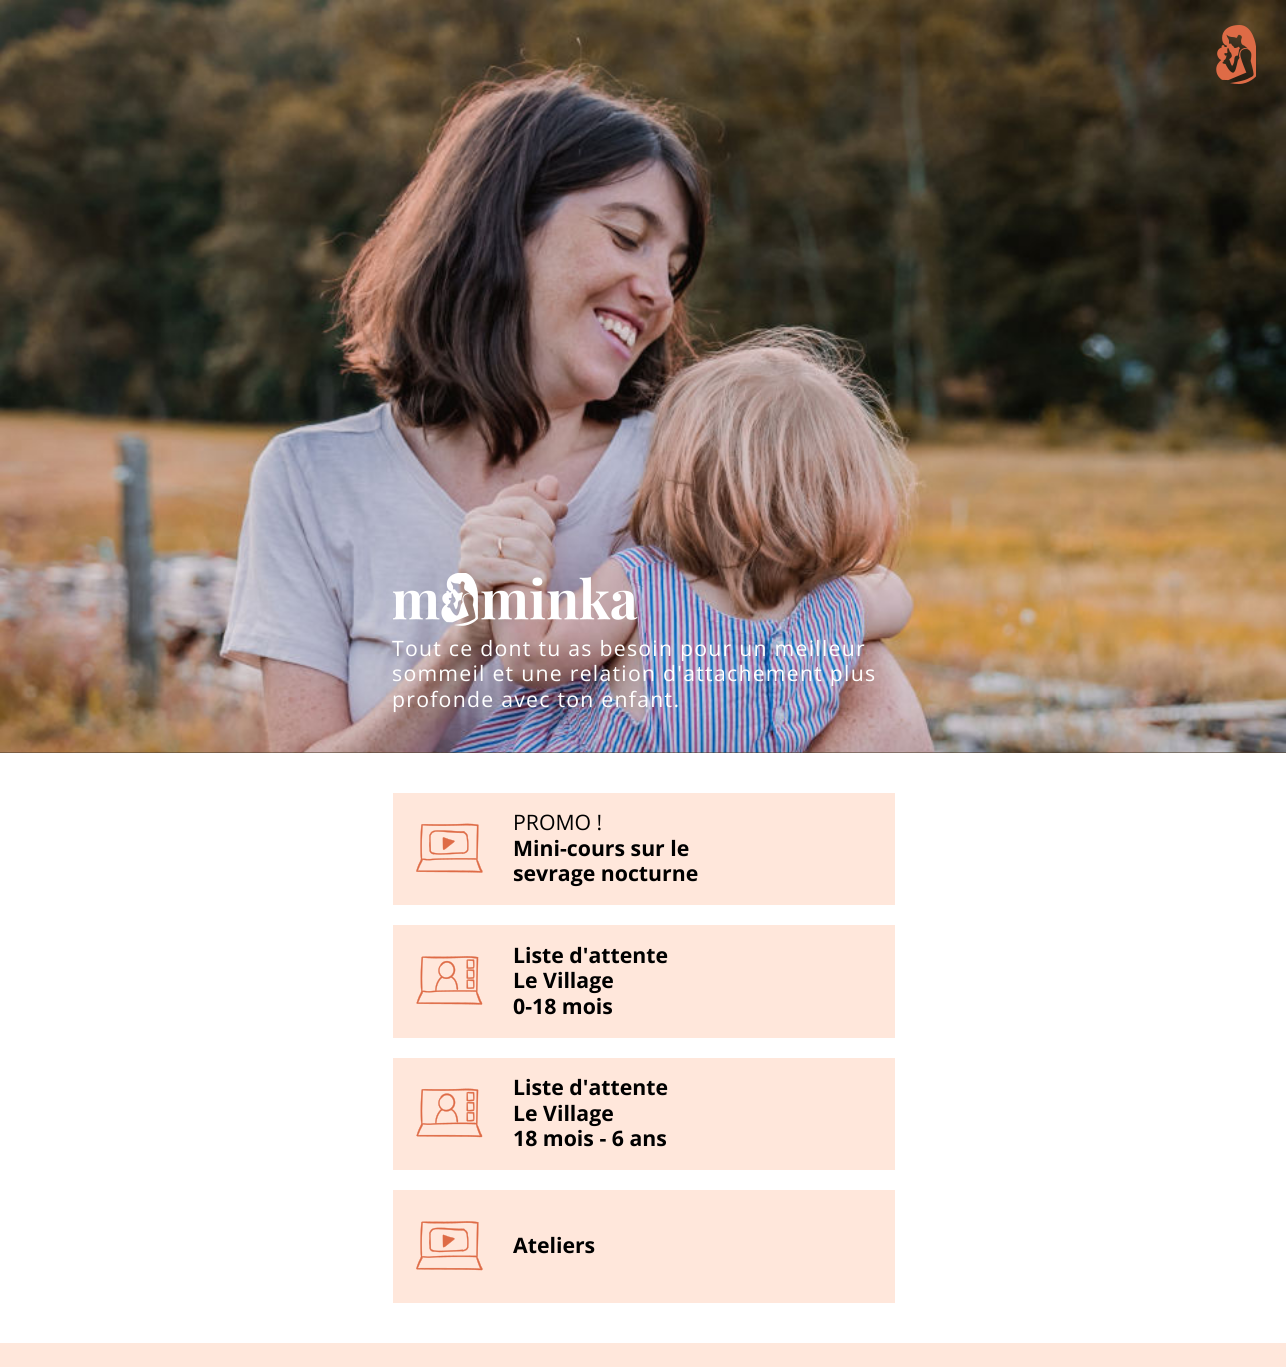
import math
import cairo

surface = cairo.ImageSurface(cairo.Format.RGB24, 1286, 1367)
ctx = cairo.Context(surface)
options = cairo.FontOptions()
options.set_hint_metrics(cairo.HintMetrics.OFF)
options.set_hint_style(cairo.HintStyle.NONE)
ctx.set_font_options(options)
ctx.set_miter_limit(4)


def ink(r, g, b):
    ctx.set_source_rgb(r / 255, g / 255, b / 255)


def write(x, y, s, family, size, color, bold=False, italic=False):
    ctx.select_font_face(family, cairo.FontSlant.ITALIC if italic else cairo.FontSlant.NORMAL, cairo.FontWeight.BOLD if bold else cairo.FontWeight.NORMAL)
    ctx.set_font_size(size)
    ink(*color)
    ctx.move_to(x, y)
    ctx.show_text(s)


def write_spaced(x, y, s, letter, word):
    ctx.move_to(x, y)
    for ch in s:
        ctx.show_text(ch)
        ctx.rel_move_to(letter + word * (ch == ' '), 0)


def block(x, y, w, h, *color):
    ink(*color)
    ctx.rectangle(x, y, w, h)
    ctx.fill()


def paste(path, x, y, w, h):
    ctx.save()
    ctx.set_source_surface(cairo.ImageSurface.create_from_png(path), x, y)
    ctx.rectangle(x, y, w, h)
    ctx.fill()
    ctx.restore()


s1 = dict(family="Open Sans", size=21.25, color=(0, 0, 0))
s2 = dict(family="Open Sans", size=21.25, color=(0, 0, 0), bold=True)

ink(255, 255, 255)
ctx.paint()
block(0, 752, 1286, 1, 79, 62, 44)
paste("pic2.png", 0, 0, 1286, 753)
paste("pic1.png", 1216, 25, 40, 59)
paste("pic3.png", 393, 573, 245, 53)
ctx.select_font_face("Open Sans")
ctx.set_font_size(21.25)
ink(255, 255, 255)
write_spaced(392, 656, "Tout ce dont tu as besoin pour un meilleur", 1.25, 0)
write_spaced(392, 681, "sommeil et une relation d'attachement plus", 1.25, 0)
write_spaced(392, 707, "profonde avec ton enfant.", 1.25, 0)
block(393, 793, 502, 112, 255, 231, 219)
paste("pic4.png", 416, 823, 67, 50)
write(513, 830, "PROMO !", **s1)
write(513, 856, "Mini-cours sur le", **s2)
write(513, 881, "sevrage nocturne", **s2)
block(393, 925, 502, 113, 255, 231, 219)
paste("pic5.png", 416, 956, 67, 49)
write(513, 963, "Liste d'attente", **s2)
write(513, 988, "Le Village", **s2)
write(513, 1014, "0-18 mois", **s2)
block(393, 1058, 502, 112, 255, 231, 219)
paste("pic6.png", 416, 1088, 67, 50)
write(513, 1095, "Liste d'attente", **s2)
write(513, 1121, "Le Village", **s2)
write(513, 1146, "18 mois - 6 ans", **s2)
block(393, 1190, 502, 113, 255, 231, 219)
paste("pic7.png", 416, 1221, 67, 50)
write(513, 1253, "Ateliers", **s2)
block(0, 1343, 1286, 24, 255, 231, 219)
surface.write_to_png("screenshot.png")
